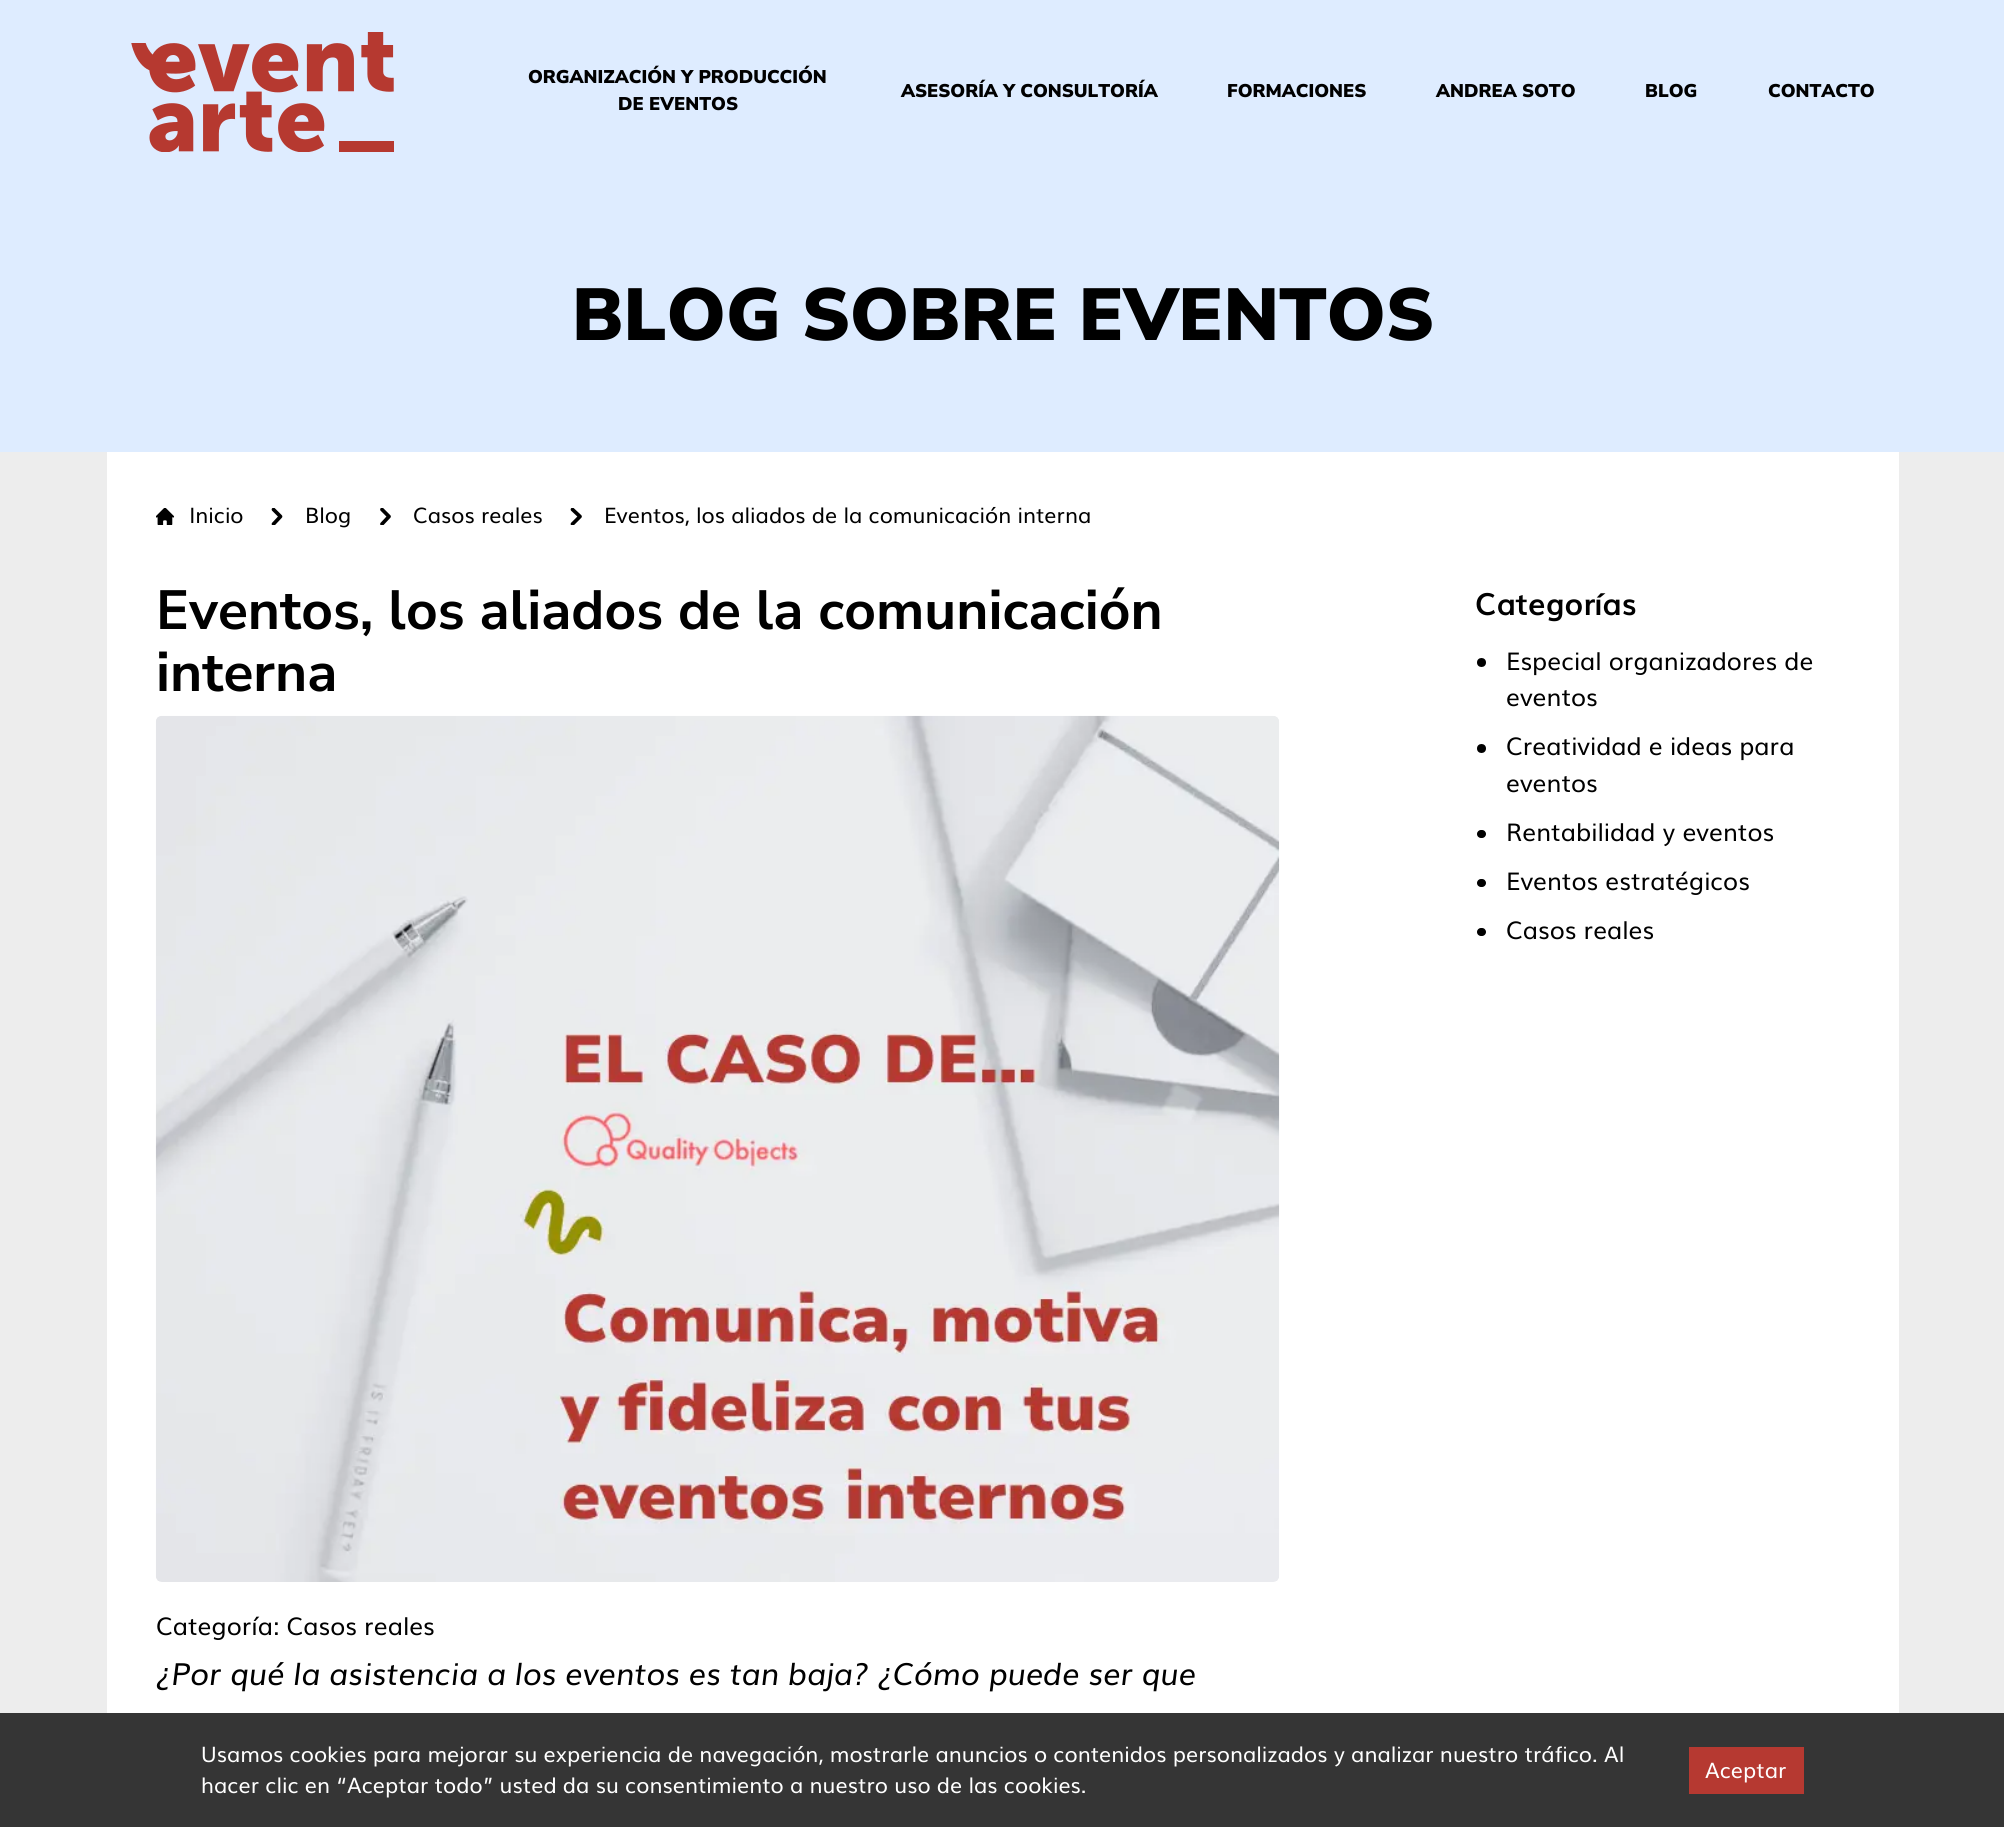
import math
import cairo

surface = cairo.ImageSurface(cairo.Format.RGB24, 2004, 1827)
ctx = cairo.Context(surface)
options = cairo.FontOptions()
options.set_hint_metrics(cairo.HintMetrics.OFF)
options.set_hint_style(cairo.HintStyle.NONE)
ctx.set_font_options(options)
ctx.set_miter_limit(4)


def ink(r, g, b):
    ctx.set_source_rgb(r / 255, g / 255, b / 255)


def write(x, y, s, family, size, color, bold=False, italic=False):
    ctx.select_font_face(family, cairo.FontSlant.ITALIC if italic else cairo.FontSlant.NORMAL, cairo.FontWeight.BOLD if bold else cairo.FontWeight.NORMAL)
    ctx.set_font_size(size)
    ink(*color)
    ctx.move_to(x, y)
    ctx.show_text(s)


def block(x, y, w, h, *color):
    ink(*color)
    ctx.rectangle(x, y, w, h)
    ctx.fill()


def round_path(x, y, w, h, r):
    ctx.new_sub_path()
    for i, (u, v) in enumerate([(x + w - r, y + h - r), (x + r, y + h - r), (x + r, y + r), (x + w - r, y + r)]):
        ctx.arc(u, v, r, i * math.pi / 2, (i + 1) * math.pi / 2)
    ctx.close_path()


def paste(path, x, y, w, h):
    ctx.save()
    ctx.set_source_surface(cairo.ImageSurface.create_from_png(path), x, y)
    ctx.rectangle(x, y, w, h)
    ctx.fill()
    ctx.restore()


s1 = dict(family="Nunito Sans Black", size=18.4, color=(0, 0, 0))
s2 = dict(family="Nunito Sans Black", size=73.5, color=(0, 0, 0))
s3 = dict(family="Muli", size=21.45, color=(0, 0, 0))
s4 = dict(family="Nunito Sans", size=55.1, color=(0, 0, 0), bold=True)
s5 = dict(family="Muli", size=24.5, color=(0, 0, 0))
s6 = dict(family="Muli", size=30.6, color=(0, 0, 0), italic=True)
s7 = dict(family="Muli", size=30.6, color=(0, 0, 0), bold=True)
s8 = dict(family="Muli", size=21.45, color=(255, 255, 255))

ink(222, 236, 255)
ctx.paint()
paste("pic1.png", 131, 32, 263, 120)
write(528, 83, "ORGANIZACIÓN Y PRODUCCIÓN", **s1)
write(618, 110, "DE EVENTOS", **s1)
write(901, 97, "ASESORÍA Y CONSULTORÍA", **s1)
write(1227, 97, "FORMACIONES", **s1)
write(1436, 97, "ANDREA SOTO", **s1)
write(1645, 97, "BLOG", **s1)
write(1768, 97, "CONTACTO", **s1)
block(0, 452, 2004, 1261, 237, 237, 237)
write(572, 340, "BLOG SOBRE EVENTOS", **s2)
block(107, 452, 1792, 1261, 255, 255, 255)
paste("pic2.png", 156, 508, 19, 17)
write(189, 523, "Inicio", **s3)
ctx.save()
ctx.rectangle(268, 508, 19, 17)
ctx.clip()
ctx.new_path()
ctx.move_to(273.5, 524)
ctx.line_to(280.5, 516.5)
ctx.line_to(273.5, 509.5)
ctx.set_line_width(3.7)
ctx.set_line_cap(cairo.LineCap.ROUND)
ctx.set_line_join(cairo.LineJoin.ROUND)
ctx.stroke()
ctx.restore()
write(305, 523, "Blog", **s3)
ctx.save()
ctx.rectangle(376, 508, 18, 17)
ctx.clip()
ctx.new_path()
ctx.move_to(382, 524)
ctx.line_to(389, 516.5)
ctx.line_to(382, 509.5)
ctx.set_line_width(3.7)
ctx.set_line_cap(cairo.LineCap.ROUND)
ctx.set_line_join(cairo.LineJoin.ROUND)
ctx.stroke()
ctx.restore()
write(413, 523, "Casos reales", **s3)
ctx.save()
ctx.rectangle(567, 508, 18, 17)
ctx.clip()
ctx.new_path()
ctx.move_to(572.5, 524)
ctx.line_to(580, 516.5)
ctx.line_to(572.5, 509.5)
ctx.set_line_width(3.7)
ctx.set_line_cap(cairo.LineCap.ROUND)
ctx.set_line_join(cairo.LineJoin.ROUND)
ctx.stroke()
ctx.restore()
write(604, 523, "Eventos, los aliados de la comunicación interna", **s3)
write(156, 629, "Eventos, los aliados de la comunicación", **s4)
write(156, 691, "interna", **s4)
paste("pic3.png", 155, 715, 1125, 867)
write(156, 1635, "Categoría: Casos reales", **s5)
write(156, 1685, "¿Por qué la asistencia a los eventos es tan baja? ¿Cómo puede ser que", **s6)
write(1475, 615, "Categorías", **s7)
ctx.new_path()
ctx.arc(1481.5, 662.5, 4.5, 0, 2 * math.pi)
ctx.fill()
write(1506, 670, "Especial organizadores de", **s5)
write(1506, 706, "eventos", **s5)
ctx.new_path()
ctx.arc(1481.5, 748.5, 4.5, 0, 2 * math.pi)
ctx.fill()
write(1506, 755, "Creatividad e ideas para", **s5)
write(1506, 792, "eventos", **s5)
round_path(1477, 830, 9, 8, 4)
ctx.fill()
write(1506, 841, "Rentabilidad y eventos", **s5)
round_path(1477, 879, 9, 8, 4)
ctx.fill()
write(1506, 890, "Eventos estratégicos", **s5)
round_path(1477, 928, 9, 8, 4)
ctx.fill()
write(1506, 939, "Casos reales", **s5)
block(0, 1713, 2004, 114, 53, 53, 53)
write(201, 1762, "Usamos cookies para mejorar su experiencia de navegación, mostrarle anuncios o contenidos personalizados y analizar nuestro tráfico. Al", **s8)
write(201, 1793, "hacer clic en “Aceptar todo” usted da su consentimiento a nuestro uso de las cookies.", **s8)
block(1689, 1747, 115, 47, 182, 57, 49)
write(1705, 1778, "Aceptar", **s8)
surface.write_to_png("screenshot.png")
